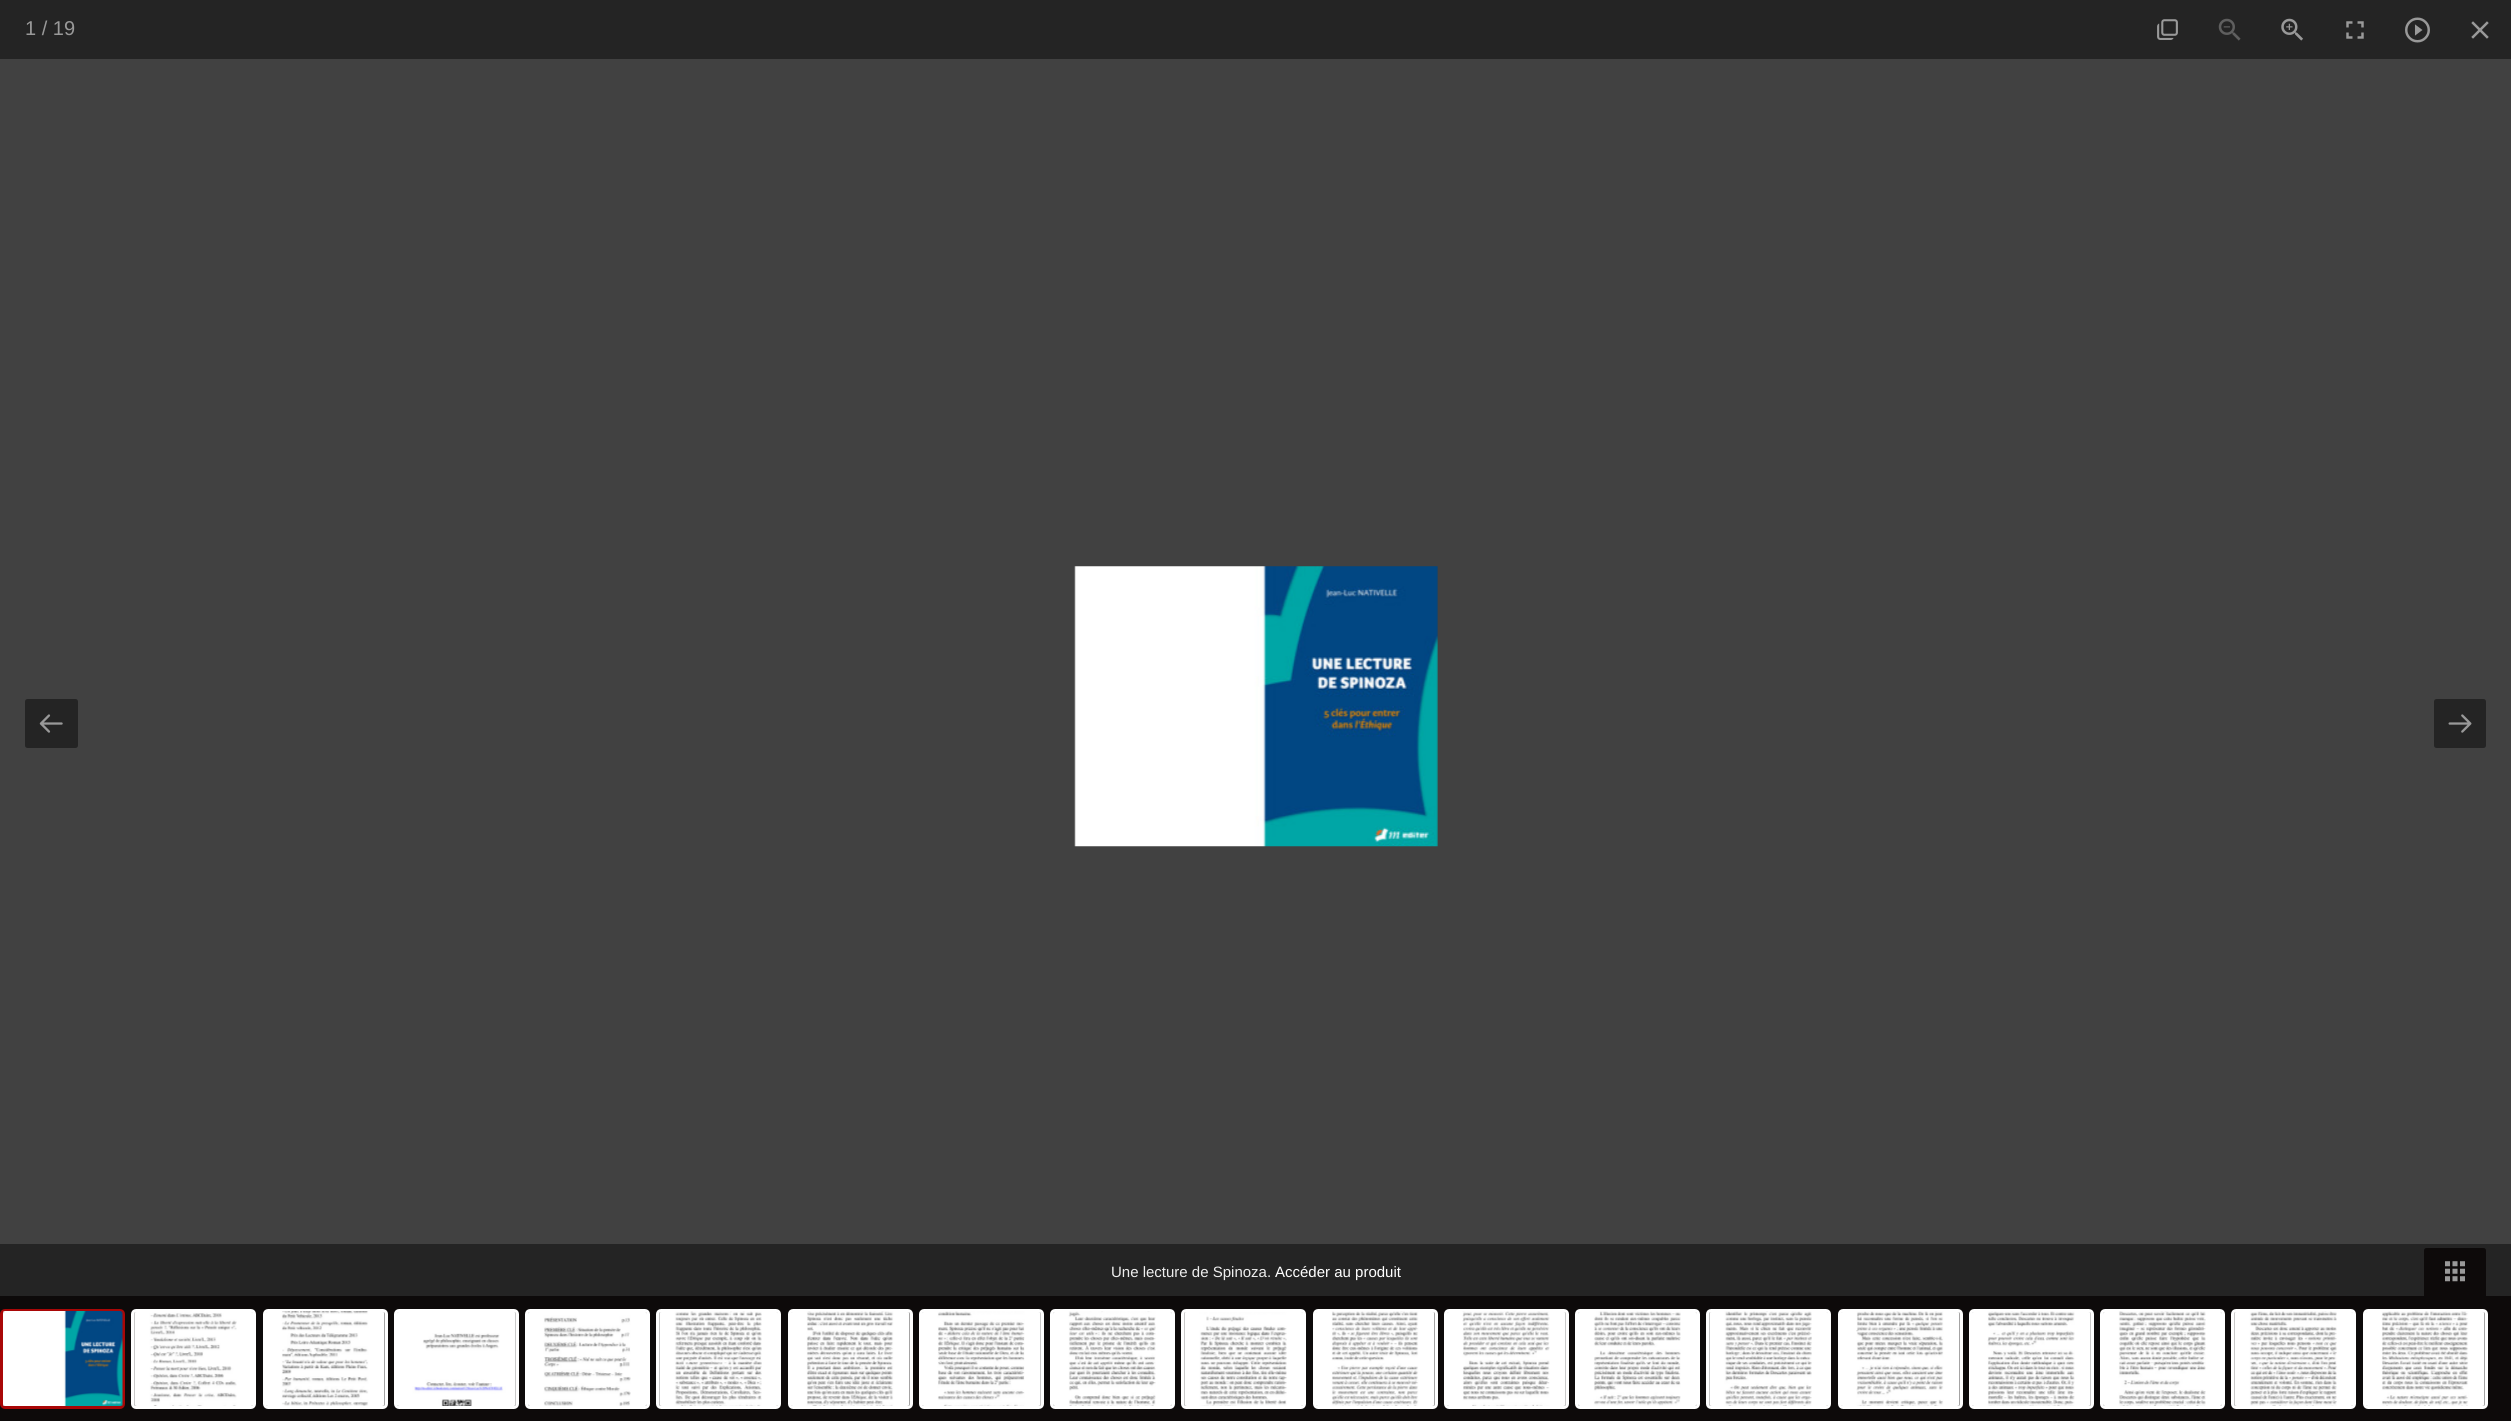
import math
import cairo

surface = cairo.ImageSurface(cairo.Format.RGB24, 2511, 1421)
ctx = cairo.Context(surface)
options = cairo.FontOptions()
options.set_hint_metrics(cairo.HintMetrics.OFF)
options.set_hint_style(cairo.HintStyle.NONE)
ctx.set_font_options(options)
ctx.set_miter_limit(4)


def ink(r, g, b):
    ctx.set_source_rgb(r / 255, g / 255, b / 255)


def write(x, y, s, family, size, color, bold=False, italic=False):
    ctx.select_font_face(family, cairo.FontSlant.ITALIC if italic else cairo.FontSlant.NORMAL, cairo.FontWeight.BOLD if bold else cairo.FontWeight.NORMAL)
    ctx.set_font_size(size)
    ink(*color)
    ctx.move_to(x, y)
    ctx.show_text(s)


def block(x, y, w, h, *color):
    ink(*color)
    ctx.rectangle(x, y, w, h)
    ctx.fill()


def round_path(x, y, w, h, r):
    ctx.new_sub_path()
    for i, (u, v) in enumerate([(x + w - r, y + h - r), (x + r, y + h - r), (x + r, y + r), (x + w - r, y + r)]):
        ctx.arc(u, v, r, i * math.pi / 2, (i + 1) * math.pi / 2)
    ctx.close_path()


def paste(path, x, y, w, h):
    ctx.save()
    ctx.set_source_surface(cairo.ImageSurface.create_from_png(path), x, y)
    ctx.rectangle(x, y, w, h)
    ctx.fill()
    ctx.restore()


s1 = dict(family="Liberation Sans", size=20, color=(153, 153, 153))
s2 = dict(family="Liberation Sans", size=15, color=(238, 238, 238))
s3 = dict(family="Liberation Sans", size=15, color=(255, 255, 255))

ink(65, 65, 65)
ctx.paint()
block(0, 0, 2511, 59, 36, 36, 36)
write(25, 35, "1 / 19", **s1)
paste("pic1.png", 2157, 19, 21, 21)
paste("pic2.png", 2218, 18, 23, 23)
paste("pic3.png", 2281, 18, 22, 23)
paste("pic4.png", 2346, 21, 18, 18)
paste("pic5.png", 2405, 17, 25, 26)
paste("pic6.png", 2471, 21, 18, 18)
paste("pic7.png", 1074, 566, 364, 281)
ink(36, 36, 36)
round_path(25, 699, 53, 49, 2.5)
ctx.fill()
paste("pic8.png", 39, 714, 24, 19)
round_path(2434, 699, 52, 49, 2.5)
ctx.fill()
paste("pic9.png", 2448, 714, 24, 19)
block(0, 1296, 2511, 125, 13, 10, 10)
block(0, 1244, 2511, 52, 36, 36, 36)
ink(13, 10, 10)
ctx.new_path()
ctx.move_to(2426.5, 1248)
ctx.line_to(2483.5, 1248)
ctx.curve_to(2485, 1248, 2486, 1249, 2486, 1250.5)
ctx.line_to(2486, 1296)
ctx.line_to(2424, 1296)
ctx.line_to(2424, 1250.5)
ctx.curve_to(2424, 1249, 2425, 1248, 2426.5, 1248)
ctx.close_path()
ctx.fill()
paste("pic10.png", 2445, 1261, 20, 21)
round_path(1.5, 1310.5, 122, 97, 3.5)
ink(169, 7, 7)
ctx.set_line_width(3)
ctx.stroke()
paste("pic11.png", 3, 1311, 120, 95)
round_path(132.5, 1310.5, 122, 97, 3.5)
ink(255, 255, 255)
ctx.stroke()
paste("pic12.png", 134, 1312, 119, 94)
round_path(264.5, 1310.5, 122, 97, 3.5)
ctx.stroke()
paste("pic13.png", 266, 1311, 119, 95)
round_path(395.5, 1310.5, 122, 97, 3.5)
ctx.stroke()
paste("pic14.png", 397, 1312, 119, 94)
round_path(526.5, 1310.5, 122, 97, 3.5)
ctx.stroke()
paste("pic15.png", 528, 1312, 119, 94)
round_path(657.5, 1310.5, 122, 97, 3.5)
ctx.stroke()
paste("pic16.png", 659, 1311, 119, 95)
round_path(789.5, 1310.5, 122, 97, 3.5)
ctx.stroke()
paste("pic17.png", 791, 1311, 119, 95)
round_path(920.5, 1310.5, 122, 97, 3.5)
ctx.stroke()
paste("pic18.png", 922, 1311, 119, 95)
round_path(1051.5, 1310.5, 122, 97, 3.5)
ctx.stroke()
paste("pic19.png", 1053, 1311, 119, 95)
round_path(1182.5, 1310.5, 122, 97, 3.5)
ctx.stroke()
paste("pic20.png", 1184, 1312, 119, 94)
round_path(1314.5, 1310.5, 122, 97, 3.5)
ctx.stroke()
paste("pic21.png", 1316, 1311, 119, 95)
round_path(1445.5, 1310.5, 122, 97, 3.5)
ctx.stroke()
paste("pic22.png", 1447, 1311, 119, 95)
round_path(1576.5, 1310.5, 122, 97, 3.5)
ctx.stroke()
paste("pic23.png", 1578, 1311, 119, 95)
round_path(1707.5, 1310.5, 122, 97, 3.5)
ctx.stroke()
paste("pic24.png", 1709, 1311, 119, 95)
round_path(1839.5, 1310.5, 122, 97, 3.5)
ctx.stroke()
paste("pic25.png", 1841, 1311, 119, 95)
round_path(1970.5, 1310.5, 122, 97, 3.5)
ctx.stroke()
paste("pic26.png", 1972, 1311, 119, 95)
round_path(2101.5, 1310.5, 122, 97, 3.5)
ctx.stroke()
paste("pic27.png", 2103, 1311, 119, 95)
round_path(2232.5, 1310.5, 122, 97, 3.5)
ctx.stroke()
paste("pic28.png", 2234, 1311, 119, 95)
round_path(2364.5, 1310.5, 122, 97, 3.5)
ctx.stroke()
paste("pic29.png", 2366, 1311, 119, 95)
write(1111, 1277, "Une lecture de Spinoza.", **s2)
write(1275, 1277, "Accéder au produit", **s3)
surface.write_to_png("screenshot.png")
